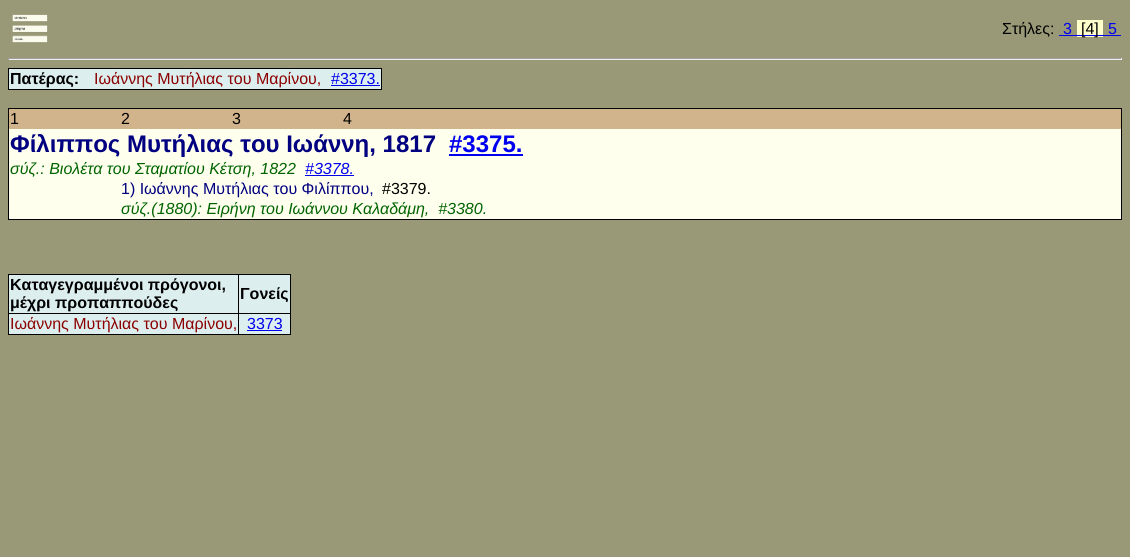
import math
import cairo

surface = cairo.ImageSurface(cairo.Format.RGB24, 1130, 557)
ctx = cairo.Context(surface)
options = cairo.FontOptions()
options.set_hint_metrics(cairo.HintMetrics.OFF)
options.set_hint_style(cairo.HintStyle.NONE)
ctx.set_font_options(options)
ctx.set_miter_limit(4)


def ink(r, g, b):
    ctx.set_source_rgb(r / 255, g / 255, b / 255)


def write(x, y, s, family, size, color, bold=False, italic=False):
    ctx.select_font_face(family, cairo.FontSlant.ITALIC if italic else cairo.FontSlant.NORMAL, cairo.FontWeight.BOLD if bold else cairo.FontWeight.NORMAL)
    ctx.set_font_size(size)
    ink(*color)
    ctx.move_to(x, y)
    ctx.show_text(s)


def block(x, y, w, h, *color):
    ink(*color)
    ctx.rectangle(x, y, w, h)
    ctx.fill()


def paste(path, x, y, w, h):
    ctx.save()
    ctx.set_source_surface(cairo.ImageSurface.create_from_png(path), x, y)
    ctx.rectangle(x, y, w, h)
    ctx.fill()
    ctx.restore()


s1 = dict(family="Liberation Sans", size=16, color=(0, 0, 0))
s2 = dict(family="Liberation Sans", size=16, color=(0, 0, 238))
s3 = dict(family="Liberation Sans", size=16, color=(0, 0, 0), bold=True)
s4 = dict(family="Liberation Sans", size=16, color=(139, 0, 0))
s5 = dict(family="Liberation Sans", size=24, color=(0, 0, 128), bold=True)
s6 = dict(family="Liberation Sans", size=24, color=(0, 0, 238), bold=True)
s7 = dict(family="Liberation Sans", size=16, color=(0, 100, 0), italic=True)
s8 = dict(family="Liberation Sans", size=16, color=(0, 0, 238), italic=True)
s9 = dict(family="Liberation Sans", size=16, color=(0, 0, 128))

ink(153, 153, 119)
ctx.paint()
paste("pic1.png", 12, 14, 36, 29)
write(1002, 34, "Στήλες:", **s1)
write(1063, 34, "3", **s2)
block(1059, 35, 18, 1, 0, 0, 238)
block(1077, 20, 26, 17, 255, 255, 204)
block(1077, 35, 44, 1, 0, 0, 238)
write(1081, 34, "[4]", **s1)
write(1108, 34, "5", **s2)
block(8, 58, 1114, 1, 159, 159, 159)
block(1121, 58, 1, 2, 238, 238, 238)
block(8, 59, 1114, 1, 238, 238, 238)
block(8, 58, 1, 2, 159, 159, 159)
block(9, 69, 372, 20, 221, 238, 238)
block(8, 68, 374, 1, 0, 0, 0)
block(381, 68, 1, 22, 0, 0, 0)
block(8, 89, 374, 1, 0, 0, 0)
block(8, 68, 1, 22, 0, 0, 0)
write(10, 84, "Πατέρας:", **s3)
write(94, 84, "Ιωάννης Μυτήλιας του Μαρίνου,", **s4)
write(331, 84, "#3373.", **s2)
block(331, 85, 49, 1, 0, 0, 238)
block(9, 129, 1112, 90, 255, 255, 238)
block(8, 108, 1114, 1, 0, 0, 0)
block(1121, 108, 1, 112, 0, 0, 0)
block(8, 219, 1114, 1, 0, 0, 0)
block(8, 108, 1, 112, 0, 0, 0)
block(9, 109, 1112, 20, 210, 180, 140)
write(10, 124, "1", **s1)
write(121, 124, "2", **s1)
write(232, 124, "3", **s1)
write(343, 124, "4", **s1)
write(10, 152, "Φίλιππος Μυτήλιας του Ιωάννη, 1817", **s5)
write(449, 152, "#3375.", **s6)
block(449, 154, 74, 2, 0, 0, 238)
write(10, 174, "σύζ.: Βιολέτα του Σταματίου Κέτση, 1822", **s7)
write(305, 174, "#3378.", **s8)
block(305, 175, 49, 1, 0, 0, 238)
write(121, 194, "1) Ιωάννης Μυτήλιας του Φιλίππου,", **s9)
write(382, 194, "#3379.", **s1)
write(121, 214, "σύζ.(1880): Ειρήνη του Ιωάννου Καλαδάμη,  #3380.", **s7)
block(9, 275, 229, 38, 221, 238, 238)
block(238, 274, 53, 1, 0, 0, 0)
block(238, 313, 53, 1, 0, 0, 0)
block(290, 313, 1, 22, 0, 0, 0)
block(238, 334, 53, 1, 0, 0, 0)
block(238, 313, 1, 22, 0, 0, 0)
block(8, 313, 231, 1, 0, 0, 0)
block(238, 274, 1, 40, 0, 0, 0)
block(8, 274, 231, 1, 0, 0, 0)
block(8, 334, 231, 1, 0, 0, 0)
block(8, 313, 1, 22, 0, 0, 0)
block(8, 274, 1, 40, 0, 0, 0)
write(10, 290, "Καταγεγραμμένοι πρόγονοι,", **s3)
write(10, 308, "μέχρι προπαππούδες", **s3)
block(239, 275, 51, 38, 221, 238, 238)
block(290, 274, 1, 40, 0, 0, 0)
write(240, 299, "Γονείς", **s3)
block(9, 314, 229, 20, 221, 238, 238)
write(10, 329, "Ιωάννης Μυτήλιας του Μαρίνου,", **s4)
block(239, 314, 51, 20, 221, 238, 238)
write(247, 329, "3373", **s2)
block(247, 330, 35, 1, 0, 0, 238)
surface.write_to_png("screenshot.png")
